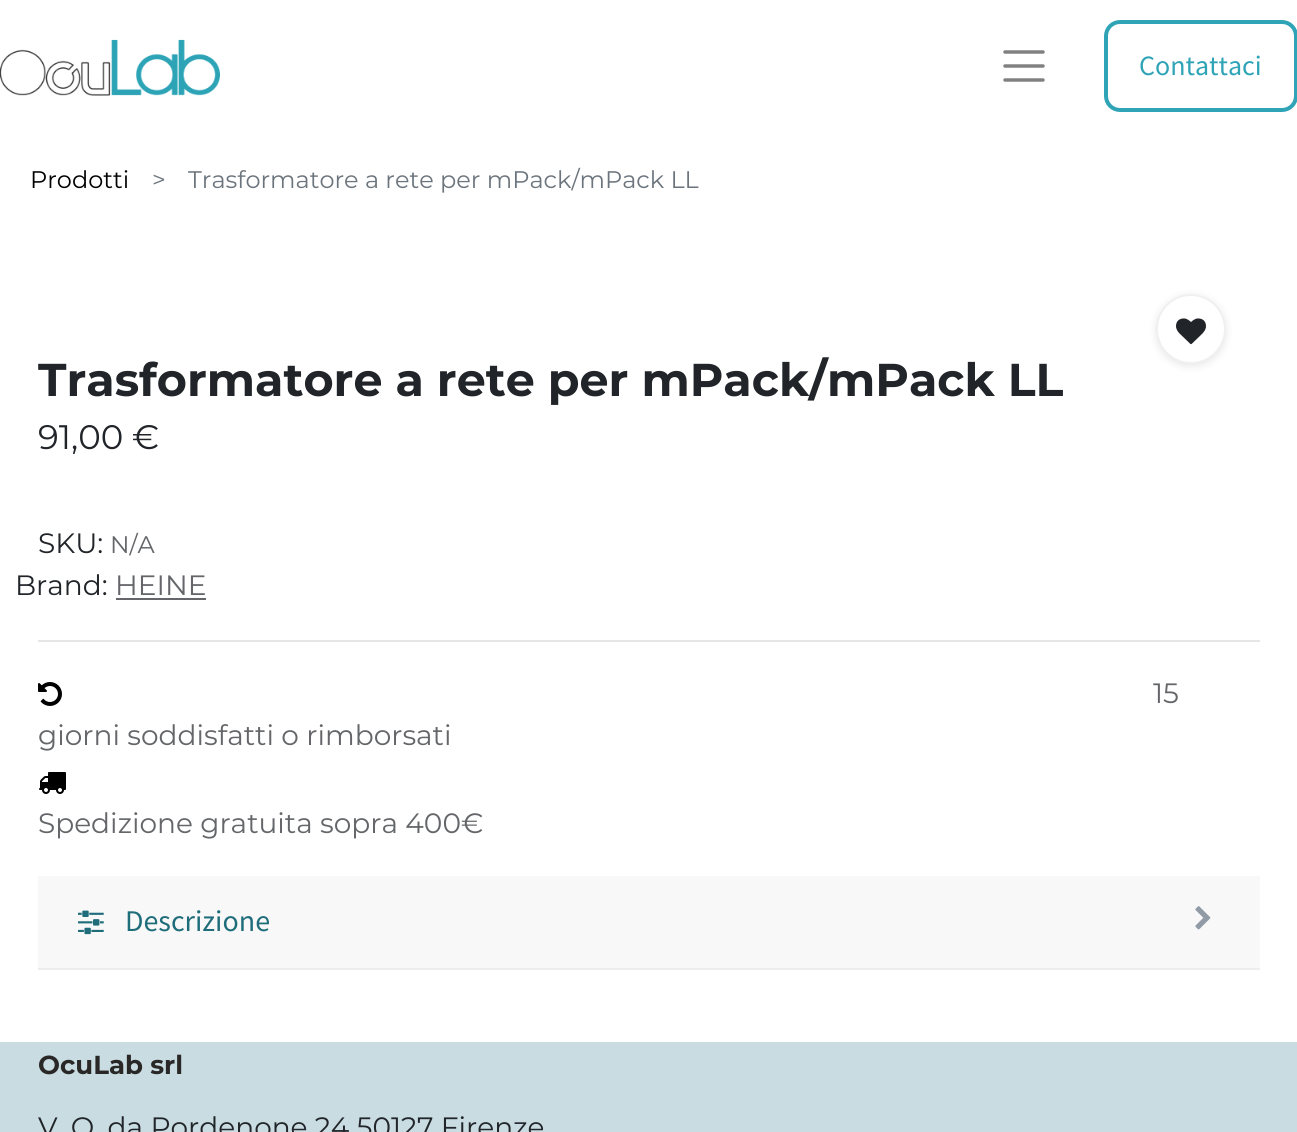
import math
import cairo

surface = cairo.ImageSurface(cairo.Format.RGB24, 1297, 1132)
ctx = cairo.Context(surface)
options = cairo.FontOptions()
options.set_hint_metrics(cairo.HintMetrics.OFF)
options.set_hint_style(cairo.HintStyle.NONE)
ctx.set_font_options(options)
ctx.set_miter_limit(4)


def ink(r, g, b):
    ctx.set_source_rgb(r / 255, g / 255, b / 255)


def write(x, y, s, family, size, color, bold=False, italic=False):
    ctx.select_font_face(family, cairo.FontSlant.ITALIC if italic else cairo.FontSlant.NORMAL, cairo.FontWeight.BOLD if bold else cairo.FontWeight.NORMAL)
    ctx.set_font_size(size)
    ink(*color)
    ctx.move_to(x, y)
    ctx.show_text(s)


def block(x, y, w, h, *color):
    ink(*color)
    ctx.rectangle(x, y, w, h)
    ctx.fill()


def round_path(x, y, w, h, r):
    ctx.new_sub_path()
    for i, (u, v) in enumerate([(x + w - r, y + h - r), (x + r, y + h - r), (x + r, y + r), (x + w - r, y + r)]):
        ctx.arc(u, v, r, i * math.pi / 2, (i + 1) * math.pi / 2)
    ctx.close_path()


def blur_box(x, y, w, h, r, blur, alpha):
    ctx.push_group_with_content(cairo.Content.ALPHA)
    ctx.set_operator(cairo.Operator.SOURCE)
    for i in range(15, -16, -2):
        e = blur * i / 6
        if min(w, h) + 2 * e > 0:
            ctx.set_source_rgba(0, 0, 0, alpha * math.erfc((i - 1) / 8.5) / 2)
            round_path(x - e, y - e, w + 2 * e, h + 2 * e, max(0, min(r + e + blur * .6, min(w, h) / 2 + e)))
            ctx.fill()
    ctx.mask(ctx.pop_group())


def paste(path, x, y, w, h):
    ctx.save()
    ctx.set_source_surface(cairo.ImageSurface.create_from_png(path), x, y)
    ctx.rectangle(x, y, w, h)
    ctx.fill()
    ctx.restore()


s1 = dict(family="Source Sans Pro", size=28, color=(47, 164, 183))
s2 = dict(family="Montserrat", size=24, color=(0, 0, 0))
s3 = dict(family="Montserrat", size=24, color=(108, 117, 125))
s4 = dict(family="Montserrat", size=46, color=(33, 37, 41), bold=True)
s5 = dict(family="Montserrat", size=34, color=(33, 37, 41))
s6 = dict(family="Montserrat", size=28, color=(33, 37, 41))
s7 = dict(family="Montserrat", size=24, color=(100, 102, 105))
s8 = dict(family="Montserrat", size=28, color=(100, 102, 105))
s9 = dict(family="Source Sans Pro", size=30, color=(31, 109, 122))
s10 = dict(family="Montserrat", size=26, color=(42, 39, 39), bold=True)

ink(255, 255, 255)
ctx.paint()
paste("pic1.png", 0, 39, 220, 57)
ctx.new_path()
ctx.move_to(1005, 52)
ctx.line_to(1043, 52)
ctx.move_to(1005, 66)
ctx.line_to(1043, 66)
ctx.move_to(1005, 80)
ctx.line_to(1043, 80)
ink(128, 128, 128)
ctx.set_line_width(3.5)
ctx.set_line_cap(cairo.LineCap.ROUND)
ctx.stroke()
round_path(1106, 22, 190, 88, 14)
ink(47, 164, 183)
ctx.set_line_width(4)
ctx.set_line_cap(cairo.LineCap.BUTT)
ctx.stroke()
write(1139, 75, "Contattaci", **s1)
write(30, 188, "Prodotti", **s2)
write(152, 188, ">", **s3)
write(188, 188, "Trasformatore a rete per mPack/mPack LL", **s3)
ink(0, 0, 0)
blur_box(1156, 296, 70, 70, 35, 4, 0.1)
ink(255, 255, 255)
ctx.arc(1191, 329, 34, 0, 2 * math.pi)
ctx.fill_preserve()
ink(240, 240, 240)
ctx.set_line_width(2)
ctx.stroke()
paste("pic2.png", 1176, 318, 30, 27)
write(38, 396, "Trasformatore a rete per mPack/mPack LL", **s4)
write(38, 449, "91,00 €", **s5)
write(38, 553, "SKU:", **s6)
write(110, 553, "N/A", **s7)
write(15, 595, "Brand:", **s6)
write(115, 595, "HEINE", **s8)
block(116, 598, 90, 2, 100, 102, 105)
block(38, 640, 1222, 2, 230, 230, 230)
paste("pic3.png", 38, 682, 24, 24)
write(1153, 703, "15", **s8)
write(38, 745, "giorni soddisfatti o rimborsati", **s8)
paste("pic4.png", 39, 772, 27, 22)
write(38, 833, "Spedizione gratuita sopra 400€", **s8)
block(38, 876, 1222, 92, 248, 248, 248)
block(38, 968, 1222, 2, 237, 237, 237)
paste("pic5.png", 78, 910, 26, 25)
write(125, 931, "Descrizione", **s9)
paste("pic6.png", 1195, 906, 16, 24)
block(0, 1042, 1297, 90, 200, 220, 225)
write(38, 1074, "OcuLab srl", **s10)
write(38, 1137, "V. O. da Pordenone 24 50127 Firenze", **s6)
surface.write_to_png("screenshot.png")
